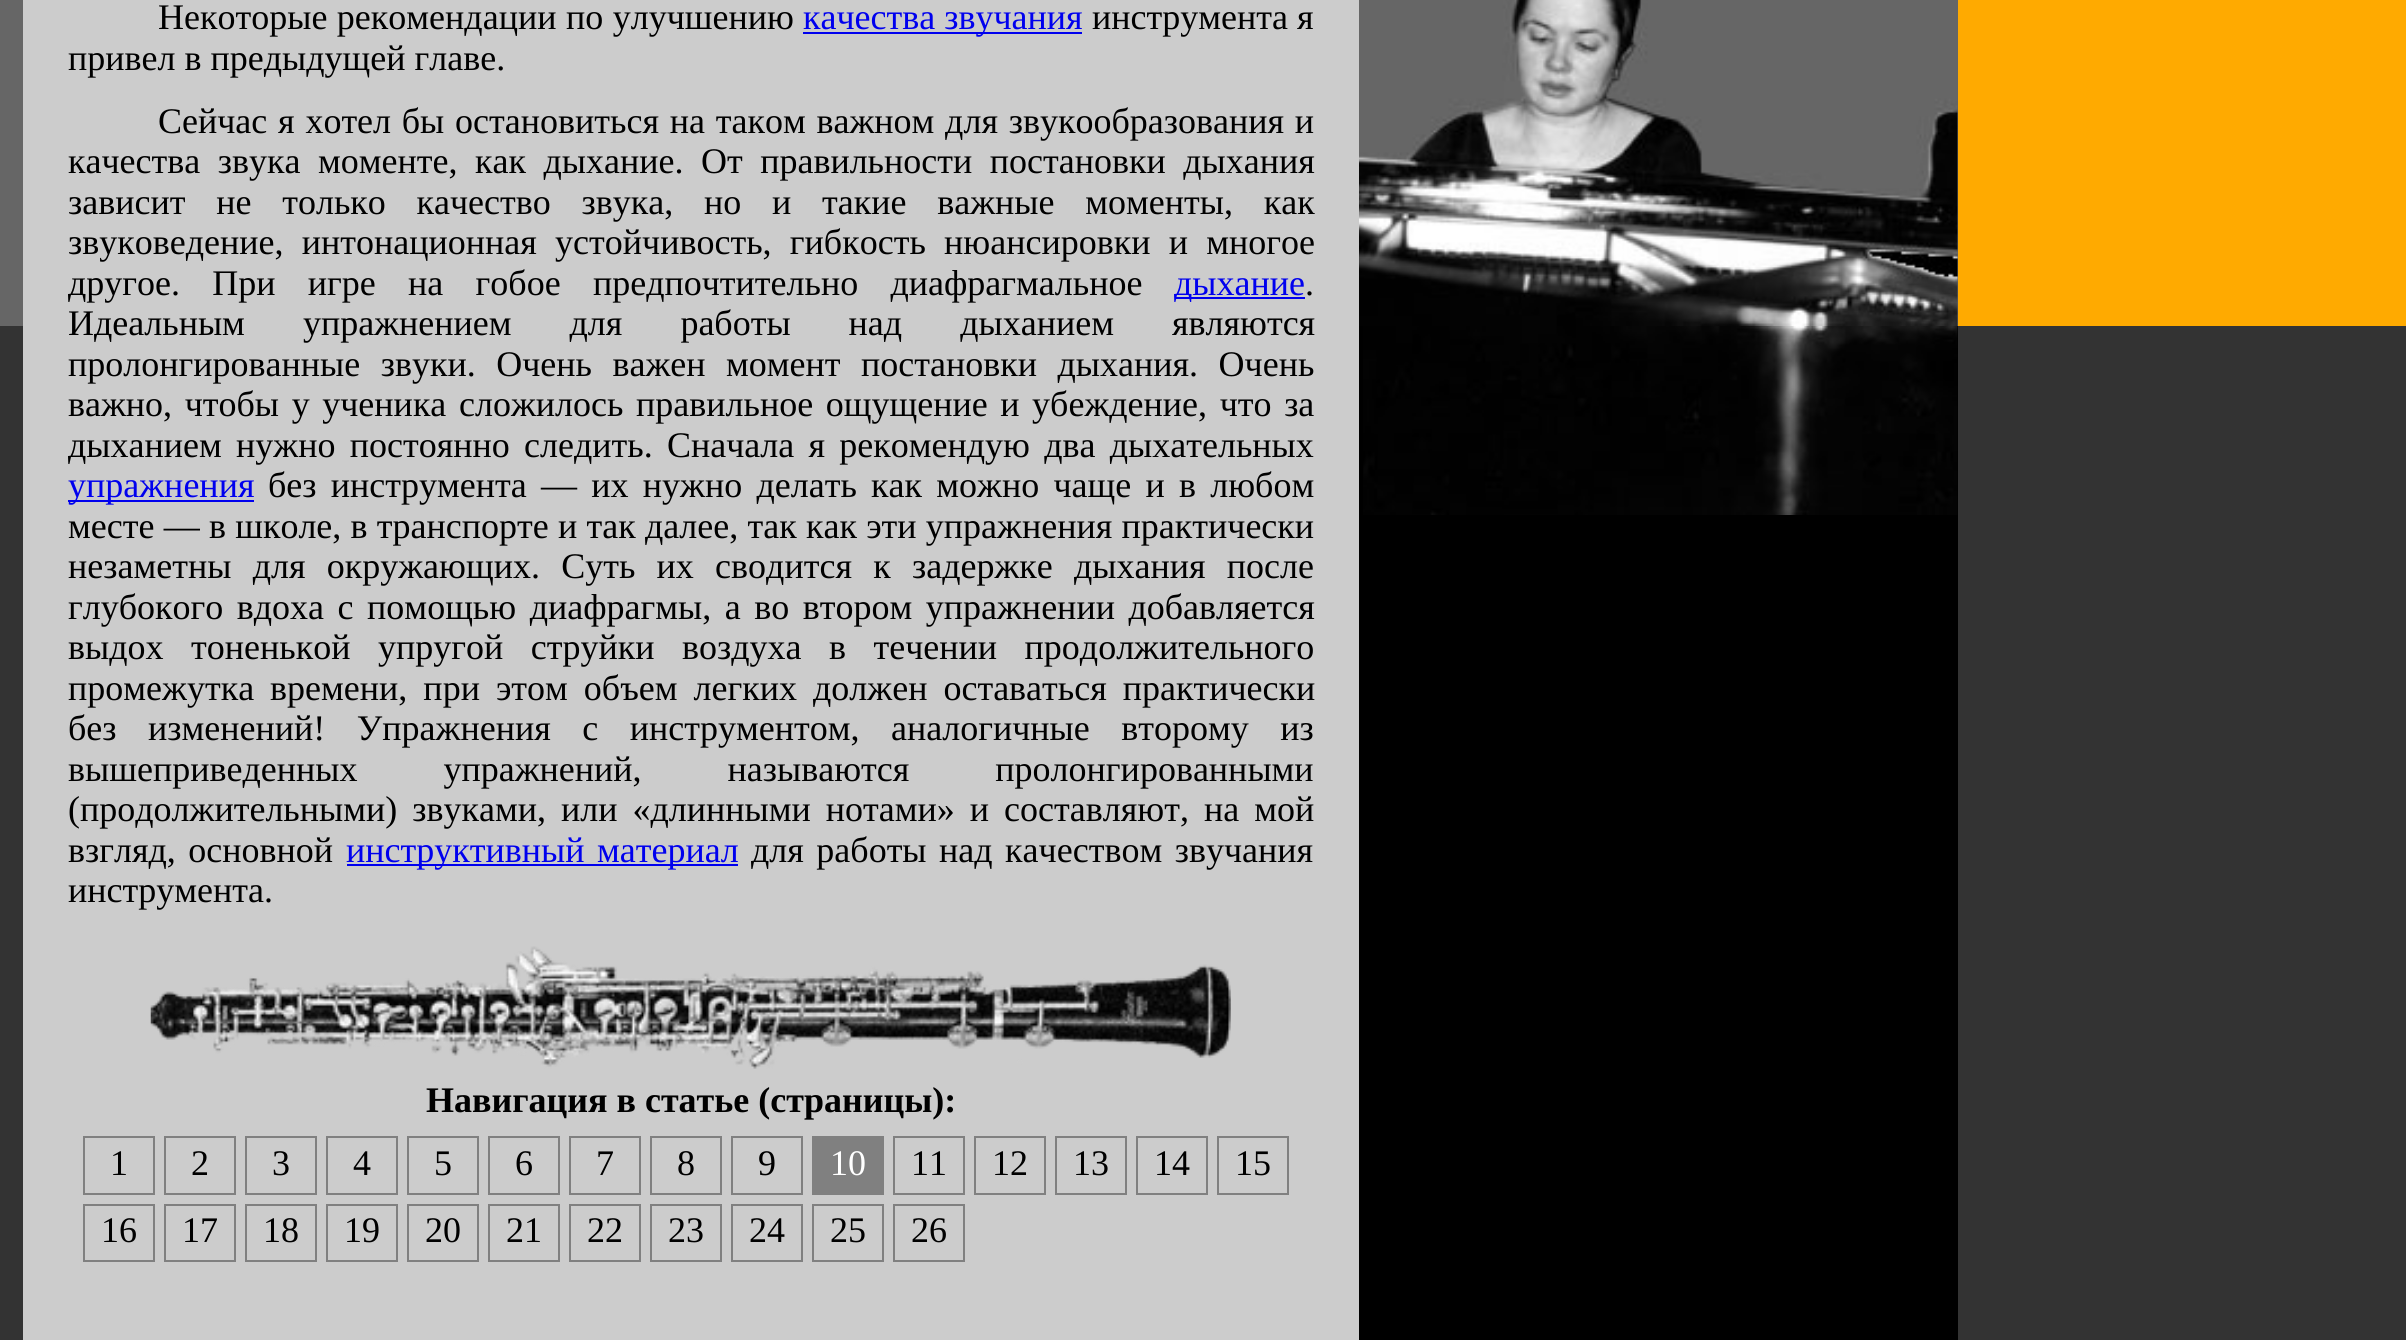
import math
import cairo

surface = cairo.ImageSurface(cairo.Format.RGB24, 2406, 1340)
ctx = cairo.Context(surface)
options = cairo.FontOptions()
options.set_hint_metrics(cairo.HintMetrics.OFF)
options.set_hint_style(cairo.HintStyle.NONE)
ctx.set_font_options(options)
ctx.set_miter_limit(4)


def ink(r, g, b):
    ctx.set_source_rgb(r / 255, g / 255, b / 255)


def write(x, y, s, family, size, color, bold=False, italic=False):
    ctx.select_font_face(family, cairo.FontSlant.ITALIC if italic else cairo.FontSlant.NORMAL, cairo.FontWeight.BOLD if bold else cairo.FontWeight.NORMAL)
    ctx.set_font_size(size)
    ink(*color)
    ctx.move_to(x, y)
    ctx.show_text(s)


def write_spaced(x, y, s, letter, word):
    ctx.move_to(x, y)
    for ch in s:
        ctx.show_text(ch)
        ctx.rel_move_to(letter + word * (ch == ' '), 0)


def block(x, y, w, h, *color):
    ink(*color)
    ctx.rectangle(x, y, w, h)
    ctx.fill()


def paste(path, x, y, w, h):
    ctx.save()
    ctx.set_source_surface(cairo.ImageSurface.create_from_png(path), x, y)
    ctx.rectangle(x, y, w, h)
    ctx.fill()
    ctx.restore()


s1 = dict(family="Liberation Serif", size=36, color=(0, 0, 238))
s2 = dict(family="Liberation Serif", size=36, color=(0, 0, 0))
s3 = dict(family="Liberation Serif", size=36, color=(0, 0, 0), bold=True)
s4 = dict(family="Liberation Serif", size=36, color=(255, 255, 255))

ink(102, 102, 102)
ctx.paint()
block(0, 326, 23, 1014, 51, 51, 51)
block(23, 0, 1336, 1340, 204, 204, 204)
ctx.select_font_face("Liberation Serif")
ctx.set_font_size(36)
ink(0, 0, 0)
write_spaced(158, 29, "Некоторые рекомендации по улучшению", 0, 0.5)
block(803, 32, 279, 2, 0, 0, 238)
write(803, 29, "качества звучания", **s1)
write(1092, 29, "инструмента я", **s2)
write(68, 70, "привел в предыдущей главе.", **s2)
write_spaced(158, 133, "Сейчас я хотел бы остановиться на таком важном для звукообразования и", 0, 1.75)
write_spaced(68, 173, "качества звука моменте, как дыхание. От правильности постановки дыхания", 0, 8.5)
write_spaced(68, 214, "зависит не только качество звука, но и такие важные моменты, как", 0, 21.75)
write_spaced(68, 254, "звуковедение, интонационная устойчивость, гибкость нюансировки и многое", 0, 9.25)
write_spaced(68, 295, "другое. При игре на гобое предпочтительно диафрагмальное", 0, 23.25)
block(1175, 297, 130, 2, 0, 0, 238)
write(1174, 295, "дыхание", **s1)
write(1305, 295, ".", **s2)
write_spaced(68, 335, "Идеальным упражнением для работы над дыханием являются", 0, 49)
write_spaced(68, 376, "пролонгированные звуки. Очень важен момент постановки дыхания. Очень", 0, 11.5)
write_spaced(68, 416, "важно, чтобы у ученика сложилось правильное ощущение и убеждение, что за", 0, 3.6)
write_spaced(68, 457, "дыханием нужно постоянно следить. Сначала я рекомендую два дыхательных", 0, 5.25)
block(68, 500, 186, 2, 0, 0, 238)
write(68, 497, "упражнения", **s1)
ink(0, 0, 0)
write_spaced(268, 497, "без инструмента — их нужно делать как можно чаще и в любом", 0, 5.25)
write_spaced(68, 538, "месте — в школе, в транспорте и так далее, так как эти упражнения практически", 0, 0.25)
write_spaced(68, 578, "незаметны для окружающих. Суть их сводится к задержке дыхания после", 0, 12.25)
write_spaced(68, 619, "глубокого вдоха с помощью диафрагмы, а во втором упражнении добавляется", 0, 4.5)
write_spaced(68, 659, "выдох тоненькой упругой струйки воздуха в течении продолжительного", 0, 18.5)
write_spaced(68, 700, "промежутка времени, при этом объем легких должен оставаться практически", 0, 7)
write_spaced(68, 740, "без изменений! Упражнения с инструментом, аналогичные второму из", 0, 22.5)
write_spaced(68, 781, "вышеприведенных упражнений, называются пролонгированными", 0, 77)
write_spaced(68, 821, "(продолжительными) звуками, или «длинными нотами» и составляют, на мой", 0, 6)
write_spaced(68, 862, "взгляд, основной", 0, 3.5)
block(347, 864, 391, 2, 0, 0, 238)
write_spaced(346, 862, "инструктивный материал", 0, 3.5)
ink(0, 0, 0)
write_spaced(751, 862, "для работы над качеством звучания", 0, 3.5)
write(68, 902, "инструмента.", **s2)
paste("pic1.png", 150, 946, 1081, 123)
write(426, 1112, "Навигация в статье (страницы):", **s3)
ctx.rectangle(84, 1137, 70, 57)
ink(128, 128, 128)
ctx.stroke()
write(110, 1175, "1", **s2)
ctx.rectangle(165, 1137, 70, 57)
ink(128, 128, 128)
ctx.stroke()
write(191, 1175, "2", **s2)
ctx.rectangle(246, 1137, 70, 57)
ink(128, 128, 128)
ctx.stroke()
write(272, 1175, "3", **s2)
ctx.rectangle(327, 1137, 70, 57)
ink(128, 128, 128)
ctx.stroke()
write(353, 1175, "4", **s2)
ctx.rectangle(408, 1137, 70, 57)
ink(128, 128, 128)
ctx.stroke()
write(434, 1175, "5", **s2)
ctx.rectangle(489, 1137, 70, 57)
ink(128, 128, 128)
ctx.stroke()
write(515, 1175, "6", **s2)
ctx.rectangle(570, 1137, 70, 57)
ink(128, 128, 128)
ctx.stroke()
write(596, 1175, "7", **s2)
ctx.rectangle(651, 1137, 70, 57)
ink(128, 128, 128)
ctx.stroke()
write(677, 1175, "8", **s2)
ctx.rectangle(732, 1137, 70, 57)
ink(128, 128, 128)
ctx.stroke()
write(758, 1175, "9", **s2)
block(812, 1136, 72, 59, 128, 128, 128)
write(830, 1175, "10", **s4)
ctx.rectangle(894, 1137, 70, 57)
ink(128, 128, 128)
ctx.stroke()
write(911, 1175, "11", **s2)
ctx.rectangle(975, 1137, 70, 57)
ink(128, 128, 128)
ctx.stroke()
write(992, 1175, "12", **s2)
ctx.rectangle(1056, 1137, 70, 57)
ink(128, 128, 128)
ctx.stroke()
write(1073, 1175, "13", **s2)
ctx.rectangle(1137, 1137, 70, 57)
ink(128, 128, 128)
ctx.stroke()
write(1154, 1175, "14", **s2)
ctx.rectangle(1218, 1137, 70, 57)
ink(128, 128, 128)
ctx.stroke()
write(1235, 1175, "15", **s2)
ctx.rectangle(84, 1205, 70, 56)
ink(128, 128, 128)
ctx.stroke()
write(101, 1242, "16", **s2)
ctx.rectangle(165, 1205, 70, 56)
ink(128, 128, 128)
ctx.stroke()
write(182, 1242, "17", **s2)
ctx.rectangle(246, 1205, 70, 56)
ink(128, 128, 128)
ctx.stroke()
write(263, 1242, "18", **s2)
ctx.rectangle(327, 1205, 70, 56)
ink(128, 128, 128)
ctx.stroke()
write(344, 1242, "19", **s2)
ctx.rectangle(408, 1205, 70, 56)
ink(128, 128, 128)
ctx.stroke()
write(425, 1242, "20", **s2)
ctx.rectangle(489, 1205, 70, 56)
ink(128, 128, 128)
ctx.stroke()
write(506, 1242, "21", **s2)
ctx.rectangle(570, 1205, 70, 56)
ink(128, 128, 128)
ctx.stroke()
write(587, 1242, "22", **s2)
ctx.rectangle(651, 1205, 70, 56)
ink(128, 128, 128)
ctx.stroke()
write(668, 1242, "23", **s2)
ctx.rectangle(732, 1205, 70, 56)
ink(128, 128, 128)
ctx.stroke()
write(749, 1242, "24", **s2)
ctx.rectangle(813, 1205, 70, 56)
ink(128, 128, 128)
ctx.stroke()
write(830, 1242, "25", **s2)
ctx.rectangle(894, 1205, 70, 56)
ink(128, 128, 128)
ctx.stroke()
write(911, 1242, "26", **s2)
paste("pic2.png", 1359, 0, 599, 326)
block(1958, 0, 448, 326, 255, 170, 0)
block(1359, 326, 599, 1014, 0, 0, 0)
paste("pic3.png", 1363, 326, 595, 189)
block(1958, 326, 448, 1014, 51, 51, 51)
surface.write_to_png("screenshot.png")
